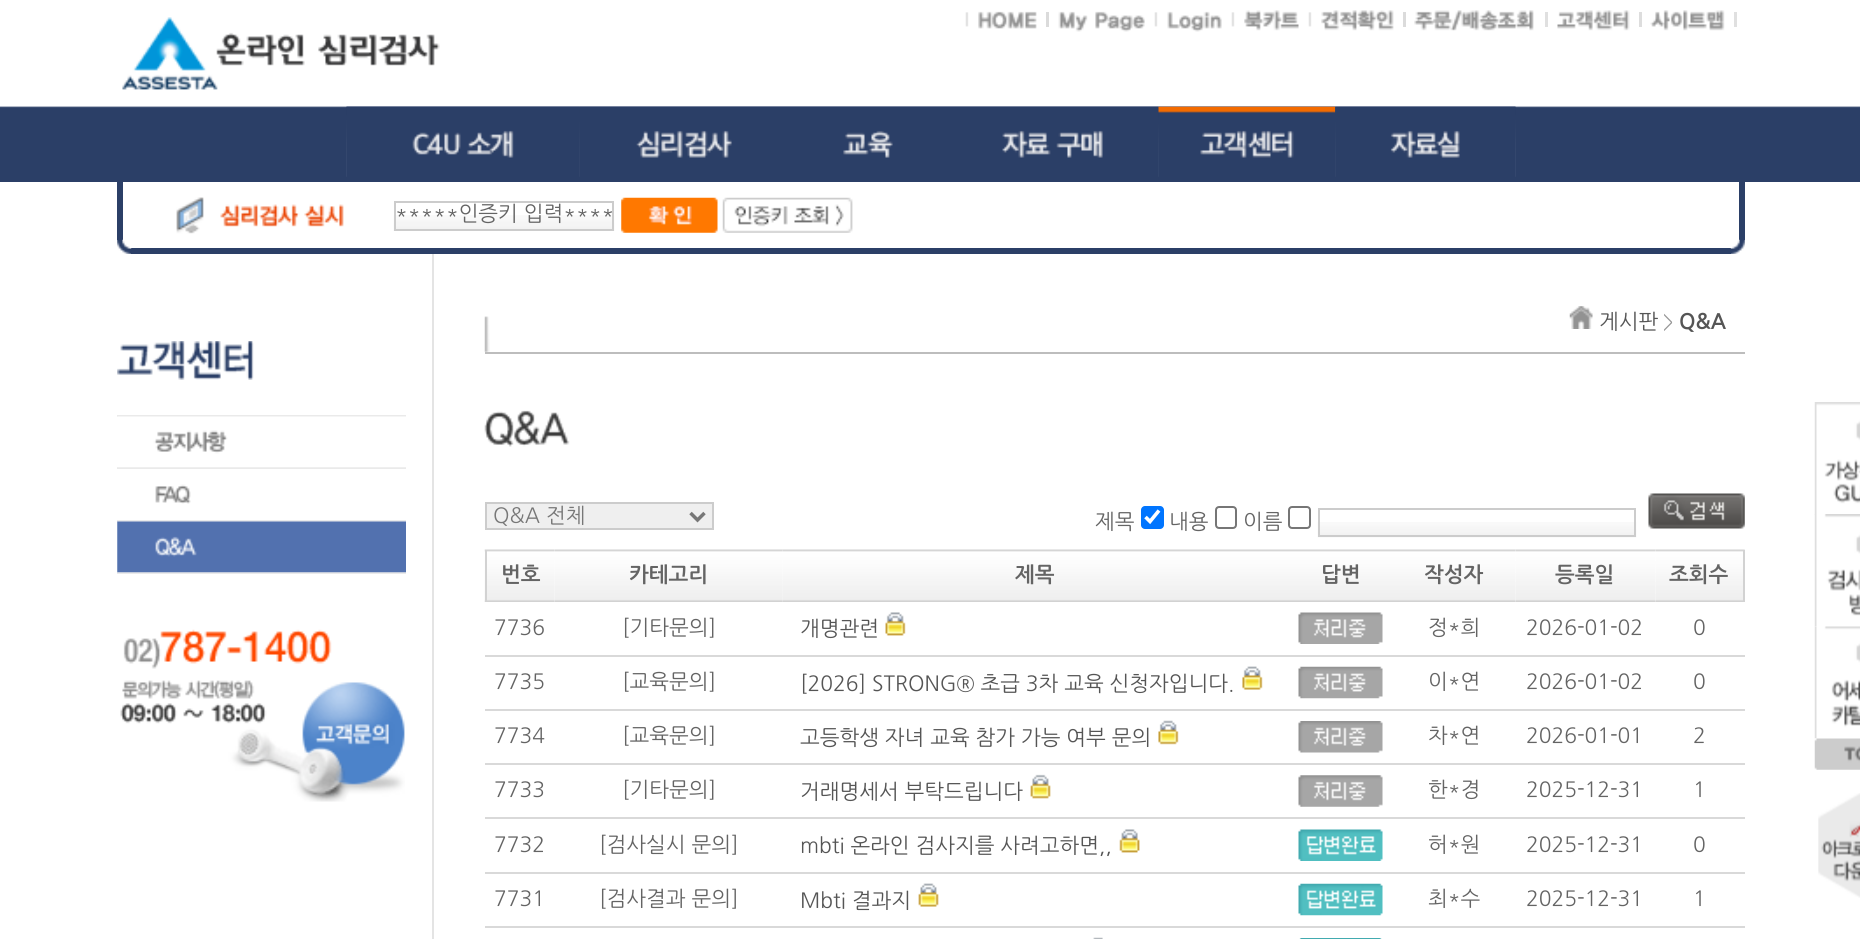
import math
import cairo

surface = cairo.ImageSurface(cairo.Format.RGB24, 1860, 939)
ctx = cairo.Context(surface)
options = cairo.FontOptions()
options.set_hint_metrics(cairo.HintMetrics.OFF)
options.set_hint_style(cairo.HintStyle.NONE)
ctx.set_font_options(options)
ctx.set_miter_limit(4)


def ink(r, g, b):
    ctx.set_source_rgb(r / 255, g / 255, b / 255)


def write(x, y, s, family, size, color, bold=False, italic=False):
    ctx.select_font_face(family, cairo.FontSlant.ITALIC if italic else cairo.FontSlant.NORMAL, cairo.FontWeight.BOLD if bold else cairo.FontWeight.NORMAL)
    ctx.set_font_size(size)
    ink(*color)
    ctx.move_to(x, y)
    ctx.show_text(s)


def block(x, y, w, h, *color):
    ink(*color)
    ctx.rectangle(x, y, w, h)
    ctx.fill()


def round_path(x, y, w, h, r):
    ctx.new_sub_path()
    for i, (u, v) in enumerate([(x + w - r, y + h - r), (x + r, y + h - r), (x + r, y + r), (x + w - r, y + r)]):
        ctx.arc(u, v, r, i * math.pi / 2, (i + 1) * math.pi / 2)
    ctx.close_path()


def paste(path, x, y, w, h):
    ctx.save()
    ctx.set_source_surface(cairo.ImageSurface.create_from_png(path), x, y)
    ctx.rectangle(x, y, w, h)
    ctx.fill()
    ctx.restore()


s1 = dict(family="NanumGothic", size=21, color=(100, 100, 100))
s2 = dict(family="NanumGothic", size=21, color=(85, 85, 85))
s3 = dict(family="NanumGothic", size=19, color=(150, 150, 150))
s4 = dict(family="NanumGothic", size=21, color=(85, 85, 85), bold=True)
s5 = dict(family="NanumGothic", size=21, color=(119, 119, 119))
s6 = dict(family="NanumGothic", size=21, color=(100, 100, 100), bold=True)

ink(255, 255, 255)
ctx.paint()
paste("pic1.png", 0, 106, 1860, 76)
paste("pic2.png", 122, 17, 318, 73)
paste("pic3.png", 965, 12, 4, 15)
paste("pic4.png", 978, 11, 59, 18)
block(1046, 12, 3, 15, 219, 219, 219)
paste("pic5.png", 1058, 11, 87, 21)
paste("pic3.png", 1154, 12, 4, 15)
paste("pic6.png", 1167, 11, 55, 21)
paste("pic3.png", 1231, 12, 4, 15)
paste("pic7.png", 1244, 10, 55, 21)
paste("pic3.png", 1308, 12, 4, 15)
paste("pic8.png", 1321, 10, 73, 21)
block(1403, 12, 3, 15, 219, 219, 219)
paste("pic9.png", 1414, 10, 120, 21)
block(1545, 12, 3, 15, 224, 224, 224)
paste("pic10.png", 1557, 10, 73, 21)
block(1639, 12, 3, 15, 221, 221, 221)
paste("pic11.png", 1650, 10, 75, 21)
block(1734, 12, 3, 15, 224, 224, 224)
paste("pic12.png", 346, 106, 234, 71)
paste("pic14.png", 579, 106, 205, 71)
paste("pic13.png", 346, 106, 234, 71)
paste("pic15.png", 579, 106, 205, 71)
paste("pic16.png", 784, 106, 161, 1)
paste("pic17.png", 784, 106, 161, 71)
paste("pic18.png", 945, 106, 214, 71)
paste("pic20.png", 1158, 106, 178, 71)
paste("pic19.png", 945, 106, 214, 71)
paste("pic22.png", 1335, 106, 181, 71)
paste("pic21.png", 1158, 106, 178, 71)
paste("pic23.png", 1335, 106, 181, 71)
block(117, 182, 6, 58, 43, 63, 103)
paste("pic24.png", 176, 197, 168, 37)
paste("pic25.png", 393, 215, 222, 16)
ctx.rectangle(395, 202, 218, 28)
ink(204, 204, 204)
ctx.stroke()
write(395, 221, "*****인증키 입력****", **s1)
paste("pic26.png", 621, 197, 97, 36)
paste("pic27.png", 722, 197, 131, 36)
block(1739, 182, 6, 58, 43, 63, 103)
block(131, 248, 1600, 6, 43, 63, 103)
paste("pic28.png", 117, 239, 15, 15)
paste("pic29.png", 1730, 239, 15, 15)
paste("pic30.png", 117, 341, 137, 39)
block(117, 415, 289, 2, 234, 234, 234)
block(117, 467, 289, 2, 234, 234, 234)
paste("pic31.png", 117, 416, 289, 52)
block(117, 520, 289, 2, 234, 234, 234)
paste("pic32.png", 155, 484, 36, 20)
block(117, 572, 289, 2, 234, 234, 234)
paste("pic33.png", 117, 521, 289, 52)
paste("pic34.png", 120, 629, 285, 173)
block(432, 254, 2, 685, 228, 228, 228)
paste("pic35.png", 484, 316, 6, 36)
block(485, 352, 1260, 2, 189, 189, 189)
paste("pic36.png", 1569, 306, 24, 23)
write(1599, 329, "게시판", **s2)
write(1663, 329, ">", **s3)
write(1679, 329, "Q&A", **s4)
paste("pic37.png", 484, 410, 86, 37)
ink(239, 239, 239)
ctx.rectangle(486, 503, 227, 26)
ctx.fill_preserve()
ink(204, 204, 204)
ctx.stroke()
ctx.new_path()
ctx.move_to(690.5, 513)
ctx.line_to(697.5, 520)
ctx.line_to(704.5, 513)
ink(119, 119, 119)
ctx.set_line_width(3.5)
ctx.stroke()
write(493, 523, "Q&A 전체", **s5)
write(1095, 529, "제목", **s1)
ink(0, 117, 255)
round_path(1141, 506, 23, 23, 4)
ctx.fill()
ctx.new_path()
ctx.move_to(1145.5, 517)
ctx.line_to(1150, 521.5)
ctx.line_to(1159, 510.5)
ink(255, 255, 255)
ctx.set_line_width(3.6)
ctx.stroke()
write(1169, 529, "내용", **s1)
round_path(1216, 507, 20, 21, 3)
ink(118, 118, 118)
ctx.set_line_width(2)
ctx.stroke()
write(1243, 529, "이름", **s1)
round_path(1289, 507, 21, 21, 3)
ink(118, 118, 118)
ctx.stroke()
paste("pic38.png", 1317, 522, 320, 16)
ctx.rectangle(1319, 509, 316, 27)
ink(204, 204, 204)
ctx.stroke()
paste("pic39.png", 1648, 493, 97, 36)
paste("pic40.png", 484, 549, 71, 53)
block(485, 550, 2, 52, 210, 210, 210)
write(501, 582, "번호", **s6)
paste("pic41.png", 555, 549, 228, 53)
write(629, 582, "카테고리", **s6)
paste("pic42.png", 782, 549, 506, 53)
write(1015, 582, "제목", **s6)
paste("pic43.png", 1288, 549, 105, 53)
write(1321, 582, "답변", **s6)
paste("pic44.png", 1393, 549, 123, 53)
write(1424, 582, "작성자", **s6)
paste("pic45.png", 1515, 549, 141, 53)
write(1555, 582, "등록일", **s6)
paste("pic46.png", 1655, 549, 90, 53)
block(1743, 550, 2, 52, 210, 210, 210)
write(1669, 582, "조회수", **s6)
block(485, 655, 1260, 2, 217, 217, 217)
write(494, 635, "7736", **s1)
write(622, 635, "[기타문의]", **s1)
write(800, 636, "개명관련", **s2)
paste("pic47.png", 885, 612, 21, 24)
paste("pic48.png", 1298, 612, 85, 32)
write(1428, 635, "정*희", **s1)
write(1526, 635, "2026-01-02", **s1)
write(1693, 635, "0", **s1)
block(485, 709, 1260, 2, 217, 217, 217)
write(494, 689, "7735", **s1)
write(622, 689, "[교육문의]", **s1)
write(800, 691, "[2026] STRONG® 초급 3차 교육 신청자입니다.", **s2)
paste("pic49.png", 1242, 666, 21, 24)
paste("pic50.png", 1298, 666, 85, 33)
write(1428, 689, "이*연", **s1)
write(1526, 689, "2026-01-02", **s1)
write(1693, 689, "0", **s1)
block(485, 763, 1260, 2, 217, 217, 217)
write(494, 743, "7734", **s1)
write(622, 743, "[교육문의]", **s1)
write(800, 745, "고등학생 자녀 교육 참가 가능 여부 문의", **s2)
paste("pic51.png", 1158, 720, 21, 25)
paste("pic52.png", 1298, 721, 85, 32)
write(1428, 743, "차*연", **s1)
write(1526, 743, "2026-01-01", **s1)
write(1693, 743, "2", **s1)
block(485, 817, 1260, 2, 217, 217, 217)
write(494, 797, "7733", **s1)
write(622, 797, "[기타문의]", **s1)
write(800, 799, "거래명세서 부탁드립니다", **s2)
paste("pic53.png", 1030, 774, 21, 25)
paste("pic54.png", 1298, 775, 85, 32)
write(1428, 797, "한*경", **s1)
write(1526, 797, "2025-12-31", **s1)
write(1693, 797, "1", **s1)
block(485, 872, 1260, 2, 217, 217, 217)
write(494, 852, "7732", **s1)
write(599, 852, "[검사실시 문의]", **s1)
write(800, 853, "mbti 온라인 검사지를 사려고하면,,", **s2)
paste("pic55.png", 1119, 829, 21, 24)
paste("pic56.png", 1298, 829, 85, 32)
write(1428, 852, "허*원", **s1)
write(1526, 852, "2025-12-31", **s1)
write(1693, 852, "0", **s1)
block(485, 926, 1260, 2, 217, 217, 217)
write(494, 906, "7731", **s1)
write(599, 906, "[검사결과 문의]", **s1)
write(800, 908, "Mbti 결과지", **s2)
paste("pic57.png", 918, 883, 21, 24)
paste("pic58.png", 1298, 883, 85, 33)
write(1428, 906, "최*수", **s1)
write(1526, 906, "2025-12-31", **s1)
write(1693, 906, "1", **s1)
paste("pic59.png", 1093, 937, 10, 2)
paste("pic60.png", 1299, 938, 83, 1)
paste("pic61.png", 1814, 402, 46, 113)
paste("pic62.png", 1814, 514, 46, 113)
paste("pic63.png", 1814, 626, 46, 113)
paste("pic64.png", 1814, 738, 46, 32)
paste("pic65.png", 1818, 793, 42, 105)
surface.write_to_png("screenshot.png")
